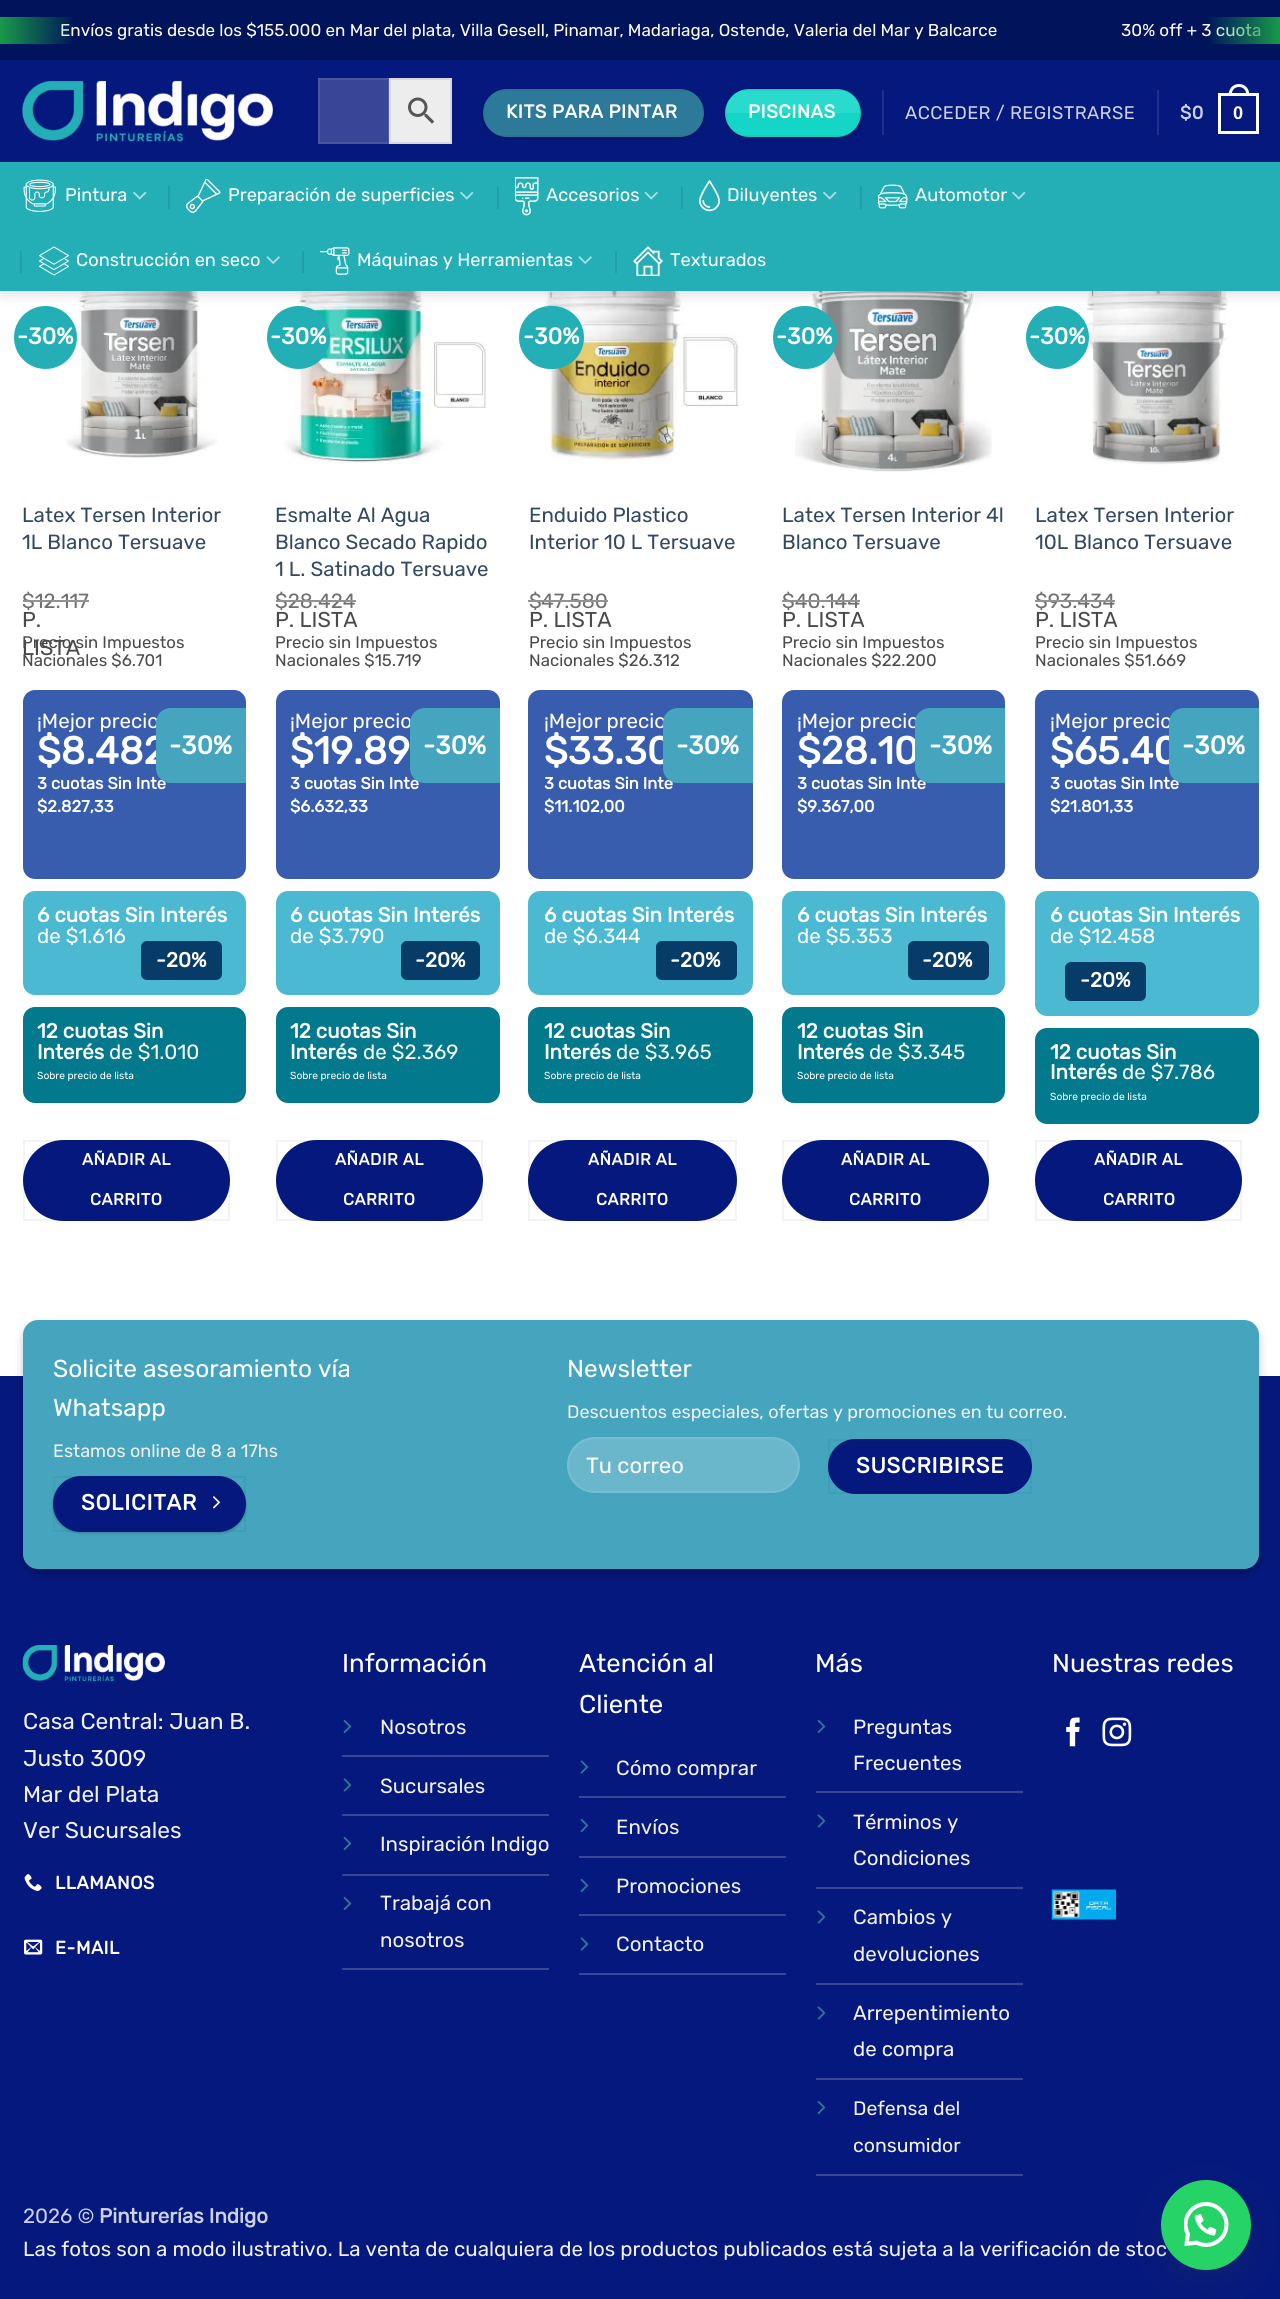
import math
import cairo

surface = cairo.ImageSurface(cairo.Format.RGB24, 1280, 2299)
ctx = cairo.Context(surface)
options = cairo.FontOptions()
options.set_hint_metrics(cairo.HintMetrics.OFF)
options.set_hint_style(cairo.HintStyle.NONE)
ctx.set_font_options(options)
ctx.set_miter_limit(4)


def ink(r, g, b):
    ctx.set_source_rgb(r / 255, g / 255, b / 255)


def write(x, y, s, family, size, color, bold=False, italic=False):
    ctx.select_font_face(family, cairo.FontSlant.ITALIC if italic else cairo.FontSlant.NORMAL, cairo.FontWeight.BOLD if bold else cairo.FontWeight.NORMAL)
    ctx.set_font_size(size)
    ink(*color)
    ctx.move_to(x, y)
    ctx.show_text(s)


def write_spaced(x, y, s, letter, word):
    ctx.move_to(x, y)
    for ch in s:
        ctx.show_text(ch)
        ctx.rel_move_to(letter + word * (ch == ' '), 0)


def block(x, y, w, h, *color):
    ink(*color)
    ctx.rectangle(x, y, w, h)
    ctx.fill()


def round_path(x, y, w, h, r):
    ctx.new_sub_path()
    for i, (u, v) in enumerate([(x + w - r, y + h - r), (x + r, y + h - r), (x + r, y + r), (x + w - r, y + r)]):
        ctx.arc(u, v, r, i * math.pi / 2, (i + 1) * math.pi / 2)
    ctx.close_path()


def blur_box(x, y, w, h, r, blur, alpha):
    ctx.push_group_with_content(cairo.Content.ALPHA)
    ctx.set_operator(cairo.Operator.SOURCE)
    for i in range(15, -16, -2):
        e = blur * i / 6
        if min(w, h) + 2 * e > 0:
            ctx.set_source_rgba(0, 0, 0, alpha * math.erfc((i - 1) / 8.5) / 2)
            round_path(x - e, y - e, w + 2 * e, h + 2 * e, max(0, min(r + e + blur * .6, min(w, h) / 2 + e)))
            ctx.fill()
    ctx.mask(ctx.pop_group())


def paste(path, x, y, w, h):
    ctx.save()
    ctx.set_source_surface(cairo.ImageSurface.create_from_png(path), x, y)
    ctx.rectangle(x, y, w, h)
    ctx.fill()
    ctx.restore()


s1 = dict(family="Rubik Light", size=17.1, color=(255, 255, 255))
s2 = dict(family="Rubik Light", size=18.25, color=(255, 255, 255))
s3 = dict(family="Rubik", size=22.75, color=(255, 255, 255), bold=True)
s4 = dict(family="Rubik Light", size=20.52, color=(51, 72, 98))
s5 = dict(family="Rubik Light", size=20.52, color=(112, 112, 112))
s6 = dict(family="Rubik Light", size=21.5, color=(74, 74, 74))
s7 = dict(family="Rubik Light", size=16.75, color=(74, 74, 74))
s8 = dict(family="Rubik Light", size=20.52, color=(255, 255, 255))
s9 = dict(family="Rubik", size=38.5, color=(255, 255, 255), bold=True)
s10 = dict(family="Rubik", size=16.5, color=(255, 255, 255), bold=True)
s11 = dict(family="Rubik", size=25.5, color=(255, 255, 255), bold=True)
s12 = dict(family="Rubik", size=20.52, color=(255, 255, 255), bold=True)
s13 = dict(family="Rubik Light", size=10.25, color=(255, 255, 255))
s14 = dict(family="Rubik Light", size=24.5, color=(255, 255, 255))
s15 = dict(family="Rubik Light", size=18, color=(241, 241, 241))
s16 = dict(family="Rubik Light", size=22, color=(255, 255, 255))
s17 = dict(family="Rubik Light", size=22.75, color=(241, 241, 241))
s18 = dict(family="Rubik Light", size=25.75, color=(255, 255, 255))
s19 = dict(family="Rubik Light", size=20.52, color=(241, 241, 241))
s20 = dict(family="Rubik Light", size=19.5, color=(241, 241, 241))
s21 = dict(family="Rubik Light", size=20.52, color=(205, 209, 229))
s22 = dict(family="Rubik", size=20.52, color=(205, 209, 229), bold=True)

ink(255, 255, 255)
ctx.paint()
paste("pic14.png", 65, 291, 153, 168)
ink(36, 175, 183)
ctx.arc(45.5, 337.5, 31.5, 0, 2 * math.pi)
ctx.fill()
paste("pic15.png", 284, 291, 202, 173)
ctx.arc(298.5, 337.5, 31.5, 0, 2 * math.pi)
ctx.fill()
paste("pic16.png", 544, 291, 195, 170)
round_path(519, 306, 65, 63, 31.5)
ctx.fill()
paste("pic17.png", 795, 291, 197, 183)
round_path(773, 306, 64, 63, 31.5)
ctx.fill()
paste("pic18.png", 1086, 291, 142, 174)
ctx.arc(1057.5, 337.5, 31.5, 0, 2 * math.pi)
ctx.fill()
ink(0, 0, 0)
blur_box(2, 2, 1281, 291, 0, 7.5, 0.15)
block(0, 0, 1280, 60, 0, 19, 91)
write(60, 36, "Envíos gratis desde los $155.000 en Mar del plata, Villa Gesell, Pinamar, Madariaga, Ostende, Valeria del Mar y Balcarce", **s1)
gradient = cairo.LinearGradient(75, 30, 0, 30)
gradient.add_color_stop_rgba(0, 0.098, 0.604, 0.286, 0)
gradient.add_color_stop_rgba(1, 0.098, 0.604, 0.286, 1)
ctx.set_source(gradient)
ctx.rectangle(0, 17, 73, 27)
ctx.fill()
write(1121, 36, "30% off + 3 cuota", **s1)
gradient = cairo.LinearGradient(1206, 30, 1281, 30)
gradient.add_color_stop_rgba(0, 0.098, 0.604, 0.286, 0)
gradient.add_color_stop_rgba(1, 0.098, 0.604, 0.286, 1)
ctx.set_source(gradient)
ctx.rectangle(1208, 17, 72, 27)
ctx.fill()
block(0, 60, 1280, 102, 5, 24, 125)
paste("pic1.png", 22, 80, 251, 62)
ink(237, 237, 237)
ctx.rectangle(390, 79, 61, 64)
ctx.fill_preserve()
ink(216, 216, 216)
ctx.stroke()
ctx.set_source_rgba(1, 1, 1, 0.2)
ctx.rectangle(318, 78, 72, 66)
ctx.fill()
ctx.rectangle(319, 79, 70, 64)
ctx.set_source_rgba(1, 1, 1, 0.09)
ctx.stroke()
paste("pic2.png", 408, 97, 27, 27)
ink(0, 0, 0)
blur_box(483, 90, 221, 48, 24, 1.5, 0.24)
ink(44, 121, 154)
round_path(483, 89, 221, 48, 24)
ctx.fill()
ctx.rectangle(484, 90, 219, 46)
ctx.set_source_rgba(0, 0, 0, 0.05)
ctx.stroke()
ctx.select_font_face("Rubik", cairo.FontSlant.NORMAL, cairo.FontWeight.BOLD)
ctx.set_font_size(18.75)
ink(255, 255, 255)
write_spaced(506, 118, "KITS PARA PINTAR", 0.5, 0)
ink(0, 0, 0)
blur_box(725, 90, 136, 48, 24, 1.5, 0.24)
ink(19, 214, 198)
round_path(725, 89, 136, 48, 24)
ctx.fill()
ctx.rectangle(726, 90, 134, 46)
ctx.set_source_rgba(0, 0, 0, 0.05)
ctx.stroke()
ctx.set_source_rgba(1, 1, 1, 0.1)
ctx.new_path()
ctx.move_to(748.5, 90)
ctx.line_to(837.5, 90)
ctx.curve_to(850, 90, 860, 100, 860, 112.5)
ctx.line_to(860, 113)
ctx.line_to(726, 113)
ctx.line_to(726, 112.5)
ctx.curve_to(726, 100, 736, 90, 748.5, 90)
ctx.close_path()
ctx.fill()
ink(255, 255, 255)
write_spaced(748, 118, "PISCINAS", 0.5, 0)
block(882, 90, 2, 45, 30, 47, 138)
ctx.select_font_face("Rubik Light")
ctx.set_font_size(18.25)
ink(205, 209, 229)
write_spaced(905, 119, "ACCEDER / REGISTRARSE", 0.4, 0)
block(1157, 90, 2, 45, 30, 47, 138)
ctx.select_font_face("Rubik", cairo.FontSlant.NORMAL, cairo.FontWeight.BOLD)
ink(205, 209, 229)
write_spaced(1180, 119, "$0", 0.4, 0)
ctx.rectangle(1219.5, 94.5, 38, 38)
ink(255, 255, 255)
ctx.set_line_width(3)
ctx.stroke()
ctx.set_fill_rule(cairo.FillRule.EVEN_ODD)
ctx.new_path()
ctx.move_to(1239, 84)
ctx.curve_to(1246, 84, 1249.5, 89.5, 1249.5, 96)
ctx.line_to(1228.5, 96)
ctx.curve_to(1228.5, 89.5, 1232, 84, 1239, 84)
ctx.close_path()
ctx.move_to(1239, 87)
ctx.curve_to(1244.5, 87, 1246.5, 91.5, 1246.5, 96)
ctx.line_to(1231.5, 96)
ctx.curve_to(1231.5, 91.5, 1233.5, 87, 1239, 87)
ctx.close_path()
ctx.fill()
ctx.select_font_face("Liberation Sans", cairo.FontSlant.NORMAL, cairo.FontWeight.BOLD)
write_spaced(1233, 119, "0", 0.4, 0)
block(0, 162, 1280, 129, 36, 175, 183)
paste("pic3.png", 23, 179, 33, 33)
write(65, 201, "Pintura", **s2)
paste("pic4.png", 133, 191, 14, 9)
block(168, 186, 2, 23, 32, 158, 165)
paste("pic5.png", 186, 179, 35, 34)
write(228, 201, "Preparación de superficies", **s2)
paste("pic4.png", 460, 191, 14, 9)
block(497, 186, 2, 23, 32, 158, 165)
paste("pic6.png", 515, 177, 24, 39)
write(546, 201, "Accesorios", **s2)
paste("pic7.png", 644, 191, 14, 9)
block(681, 186, 2, 23, 32, 158, 165)
paste("pic8.png", 699, 180, 21, 32)
write(727, 201, "Diluyentes", **s2)
paste("pic4.png", 823, 191, 14, 9)
block(860, 186, 2, 23, 32, 158, 165)
paste("pic9.png", 878, 184, 30, 25)
write(915, 201, "Automotor", **s2)
paste("pic4.png", 1012, 191, 14, 9)
block(20, 251, 2, 22, 32, 158, 165)
paste("pic10.png", 39, 246, 30, 30)
write(76, 266, "Construcción en seco", **s2)
paste("pic11.png", 266, 256, 14, 8)
block(302, 251, 2, 22, 32, 158, 165)
paste("pic12.png", 320, 247, 30, 28)
write(357, 266, "Máquinas y Herramientas", **s2)
paste("pic11.png", 578, 256, 14, 8)
block(615, 251, 2, 22, 32, 158, 165)
paste("pic13.png", 633, 246, 30, 30)
write(670, 266, "Texturados", **s2)
write(17, 344, "-30%", **s3)
write(22, 522, "Latex Tersen Interior", **s4)
write(22, 549, "1L Blanco Tersuave", **s4)
write(22, 608, "$12.117", **s5)
block(23, 600, 66, 2, 146, 146, 146)
write(22, 627, "P.", **s6)
write(22, 648, "Precio sin Impuestos", **s7)
write(22, 655, "LISTA", **s6)
write(22, 666, "Nacionales $6.701", **s7)
ink(56, 93, 174)
round_path(23, 690, 223, 189, 12)
ctx.fill()
write(37, 728, "¡Mejor precio", **s8)
write(37, 764, "$8.482", **s9)
write(37, 789, "3 cuotas Sin Inte", **s10)
ink(69, 165, 191)
ctx.new_path()
ctx.move_to(171, 708)
ctx.line_to(246, 708)
ctx.line_to(246, 783)
ctx.line_to(171, 783)
ctx.curve_to(162.5, 783, 156, 776.5, 156, 768)
ctx.line_to(156, 723)
ctx.curve_to(156, 714.5, 162.5, 708, 171, 708)
ctx.close_path()
ctx.fill()
write(169, 754, "-30%", **s11)
write(37, 812, "$2.827,33", **s10)
ink(76, 185, 211)
round_path(23, 891, 223, 104, 12)
ctx.fill()
write(37, 922, "6 cuotas Sin Interés", **s12)
write(37, 943, "de $1.616", **s8)
ink(7, 59, 104)
round_path(141, 941, 81, 39, 6)
ctx.fill()
write(156, 967, "-20%", **s12)
ink(3, 121, 141)
round_path(23, 1007, 223, 96, 12)
ctx.fill()
write(37, 1038, "12 cuotas Sin", **s12)
write(37, 1059, "Interés", **s12)
write(109, 1059, "de $1.010", **s8)
write(37, 1079, "Sobre precio de lista", **s13)
ink(5, 24, 125)
round_path(23, 1140, 207, 81, 40.5)
ctx.fill()
ctx.rectangle(24, 1141, 205, 79)
ctx.set_source_rgba(0, 0, 0, 0.05)
ctx.set_line_width(2)
ctx.stroke()
ctx.select_font_face("Rubik", cairo.FontSlant.NORMAL, cairo.FontWeight.BOLD)
ctx.set_font_size(16.5)
ink(255, 255, 255)
write_spaced(82, 1165, "AÑADIR AL", 0.5, 0)
write_spaced(90, 1205, "CARRITO", 0.5, 0)
write(270, 344, "-30%", **s3)
write(275, 522, "Esmalte Al Agua", **s4)
write(275, 549, "Blanco Secado Rapido", **s4)
write(275, 576, "1 L. Satinado Tersuave", **s4)
write(275, 608, "$28.424", **s5)
block(276, 600, 80, 2, 146, 146, 146)
write(275, 627, "P. LISTA", **s6)
write(275, 648, "Precio sin Impuestos", **s7)
write(275, 666, "Nacionales $15.719", **s7)
ink(56, 93, 174)
round_path(276, 690, 224, 189, 12)
ctx.fill()
write(290, 728, "¡Mejor precio", **s8)
write(290, 764, "$19.89", **s9)
write(290, 789, "3 cuotas Sin Inte", **s10)
ink(69, 165, 191)
ctx.new_path()
ctx.move_to(425, 708)
ctx.line_to(500, 708)
ctx.line_to(500, 783)
ctx.line_to(425, 783)
ctx.curve_to(416.5, 783, 410, 776.5, 410, 768)
ctx.line_to(410, 723)
ctx.curve_to(410, 714.5, 416.5, 708, 425, 708)
ctx.close_path()
ctx.fill()
write(423, 754, "-30%", **s11)
write(290, 812, "$6.632,33", **s10)
ink(76, 185, 211)
round_path(276, 891, 224, 104, 12)
ctx.fill()
write(290, 922, "6 cuotas Sin Interés", **s12)
write(290, 943, "de $3.790", **s8)
ink(7, 59, 104)
round_path(401, 941, 79, 39, 6)
ctx.fill()
write(415, 967, "-20%", **s12)
ink(3, 121, 141)
round_path(276, 1007, 224, 96, 12)
ctx.fill()
write(290, 1038, "12 cuotas Sin", **s12)
write(290, 1059, "Interés", **s12)
write(363, 1059, "de $2.369", **s8)
write(290, 1079, "Sobre precio de lista", **s13)
ink(5, 24, 125)
round_path(276, 1140, 207, 81, 40.5)
ctx.fill()
ctx.rectangle(277, 1141, 205, 79)
ctx.set_source_rgba(0, 0, 0, 0.05)
ctx.stroke()
ctx.select_font_face("Rubik", cairo.FontSlant.NORMAL, cairo.FontWeight.BOLD)
ctx.set_font_size(16.5)
ink(255, 255, 255)
write_spaced(335, 1165, "AÑADIR AL", 0.5, 0)
write_spaced(343, 1205, "CARRITO", 0.5, 0)
write(523, 344, "-30%", **s3)
write(529, 522, "Enduido Plastico", **s4)
write(529, 549, "Interior 10 L Tersuave", **s4)
write(529, 608, "$", **s5)
block(528, 600, 14, 2, 146, 146, 146)
write(541, 608, "47.580", **s5)
block(542, 600, 66, 2, 146, 146, 146)
write(529, 627, "P. LISTA", **s6)
write(529, 648, "Precio sin Impuestos", **s7)
write(529, 666, "Nacionales $26.312", **s7)
ink(56, 93, 174)
round_path(528, 690, 225, 189, 12)
ctx.fill()
write(544, 728, "¡Mejor precio", **s8)
write(544, 764, "$33.30", **s9)
write(544, 789, "3 cuotas Sin Inte", **s10)
ink(69, 165, 191)
ctx.new_path()
ctx.move_to(678, 708)
ctx.line_to(753, 708)
ctx.line_to(753, 783)
ctx.line_to(678, 783)
ctx.curve_to(669.5, 783, 663, 776.5, 663, 768)
ctx.line_to(663, 723)
ctx.curve_to(663, 714.5, 669.5, 708, 678, 708)
ctx.close_path()
ctx.fill()
write(676, 754, "-30%", **s11)
write(544, 812, "$11.102,00", **s10)
ink(76, 185, 211)
round_path(528, 891, 225, 104, 12)
ctx.fill()
write(544, 922, "6 cuotas Sin Interés", **s12)
write(544, 943, "de $6.344", **s8)
ink(7, 59, 104)
round_path(656, 941, 81, 39, 6)
ctx.fill()
write(670, 967, "-20%", **s12)
ink(3, 121, 141)
round_path(528, 1007, 225, 96, 12)
ctx.fill()
write(544, 1038, "12 cuotas Sin", **s12)
write(544, 1059, "Interés", **s12)
write(616, 1059, "de $3.965", **s8)
write(544, 1079, "Sobre precio de lista", **s13)
ink(5, 24, 125)
round_path(528, 1140, 209, 81, 40.5)
ctx.fill()
ctx.rectangle(529, 1141, 207, 79)
ctx.set_source_rgba(0, 0, 0, 0.05)
ctx.stroke()
ctx.select_font_face("Rubik", cairo.FontSlant.NORMAL, cairo.FontWeight.BOLD)
ctx.set_font_size(16.5)
ink(255, 255, 255)
write_spaced(588, 1165, "AÑADIR AL", 0.5, 0)
write_spaced(596, 1205, "CARRITO", 0.5, 0)
write(776, 344, "-30%", **s3)
write(782, 522, "Latex Tersen Interior 4l", **s4)
write(782, 549, "Blanco Tersuave", **s4)
write(782, 608, "$40.144", **s5)
block(782, 600, 78, 2, 146, 146, 146)
write(782, 627, "P. LISTA", **s6)
write(782, 648, "Precio sin Impuestos", **s7)
write(782, 666, "Nacionales $22.200", **s7)
ink(56, 93, 174)
round_path(782, 690, 223, 189, 12)
ctx.fill()
write(797, 728, "¡Mejor precio", **s8)
write(797, 764, "$28.10", **s9)
write(797, 789, "3 cuotas Sin Inte", **s10)
ink(69, 165, 191)
ctx.new_path()
ctx.move_to(930, 708)
ctx.line_to(1005, 708)
ctx.line_to(1005, 783)
ctx.line_to(930, 783)
ctx.curve_to(921.5, 783, 915, 776.5, 915, 768)
ctx.line_to(915, 723)
ctx.curve_to(915, 714.5, 921.5, 708, 930, 708)
ctx.close_path()
ctx.fill()
write(929, 754, "-30%", **s11)
write(797, 812, "$9.367,00", **s10)
ink(76, 185, 211)
round_path(782, 891, 223, 104, 12)
ctx.fill()
write(797, 922, "6 cuotas Sin Interés", **s12)
write(797, 943, "de $5.353", **s8)
ink(7, 59, 104)
round_path(908, 941, 81, 39, 6)
ctx.fill()
write(922, 967, "-20%", **s12)
ink(3, 121, 141)
round_path(782, 1007, 223, 96, 12)
ctx.fill()
write(797, 1038, "12 cuotas Sin", **s12)
write(797, 1059, "Interés", **s12)
write(869, 1059, "de $3.345", **s8)
write(797, 1079, "Sobre precio de lista", **s13)
ink(5, 24, 125)
round_path(782, 1140, 207, 81, 40.5)
ctx.fill()
ctx.rectangle(783, 1141, 205, 79)
ctx.set_source_rgba(0, 0, 0, 0.05)
ctx.stroke()
ctx.select_font_face("Rubik", cairo.FontSlant.NORMAL, cairo.FontWeight.BOLD)
ctx.set_font_size(16.5)
ink(255, 255, 255)
write_spaced(841, 1165, "AÑADIR AL", 0.5, 0)
write_spaced(849, 1205, "CARRITO", 0.5, 0)
write(1029, 344, "-30%", **s3)
write(1035, 522, "Latex Tersen Interior", **s4)
write(1035, 549, "10L Blanco Tersuave", **s4)
write(1035, 608, "$93.434", **s5)
block(1035, 600, 80, 2, 146, 146, 146)
write(1035, 627, "P. LISTA", **s6)
write(1035, 648, "Precio sin Impuestos", **s7)
write(1035, 666, "Nacionales $51.669", **s7)
ink(56, 93, 174)
round_path(1035, 690, 224, 189, 12)
ctx.fill()
write(1050, 728, "¡Mejor precio", **s8)
write(1050, 764, "$65.40", **s9)
write(1050, 789, "3 cuotas Sin Inte", **s10)
ink(69, 165, 191)
ctx.new_path()
ctx.move_to(1184, 708)
ctx.line_to(1259, 708)
ctx.line_to(1259, 783)
ctx.line_to(1184, 783)
ctx.curve_to(1175.5, 783, 1169, 776.5, 1169, 768)
ctx.line_to(1169, 723)
ctx.curve_to(1169, 714.5, 1175.5, 708, 1184, 708)
ctx.close_path()
ctx.fill()
write(1182, 754, "-30%", **s11)
write(1050, 812, "$21.801,33", **s10)
ink(76, 185, 211)
round_path(1035, 891, 224, 125, 12)
ctx.fill()
write(1050, 922, "6 cuotas Sin Interés", **s12)
write(1050, 943, "de $12.458", **s8)
ink(7, 59, 104)
round_path(1065, 962, 81, 39, 6)
ctx.fill()
write(1080, 987, "-20%", **s12)
ink(3, 121, 141)
round_path(1035, 1028, 224, 96, 12)
ctx.fill()
write(1050, 1059, "12 cuotas Sin", **s12)
write(1050, 1079, "Interés", **s12)
write(1122, 1079, "de $7.786", **s8)
write(1050, 1100, "Sobre precio de lista", **s13)
ink(5, 24, 125)
round_path(1035, 1140, 207, 81, 40.5)
ctx.fill()
ctx.rectangle(1036, 1141, 205, 79)
ctx.set_source_rgba(0, 0, 0, 0.05)
ctx.stroke()
ctx.select_font_face("Rubik", cairo.FontSlant.NORMAL, cairo.FontWeight.BOLD)
ctx.set_font_size(16.5)
ink(255, 255, 255)
write_spaced(1094, 1165, "AÑADIR AL", 0.5, 0)
write_spaced(1103, 1205, "CARRITO", 0.5, 0)
block(0, 1376, 1280, 923, 5, 24, 125)
ink(0, 0, 0)
blur_box(23, 1325, 1236, 249, 15, 4.5, 0.23)
blur_box(29, 1331, 1224, 237, 9, 4.5, 0.16)
ink(69, 165, 191)
round_path(23, 1320, 1236, 249, 15)
ctx.fill()
write(53, 1377, "Solicite asesoramiento vía", **s14)
write(53, 1416, "Whatsapp", **s14)
write(53, 1457, "Estamos online de 8 a 17hs", **s15)
ink(0, 0, 0)
blur_box(53, 1478, 193, 55, 27.5, 1.5, 0.24)
ink(5, 24, 125)
round_path(53, 1476, 193, 56, 28)
ctx.fill()
ctx.rectangle(54, 1477, 191, 54)
ctx.set_source_rgba(0, 0, 0, 0.05)
ctx.stroke()
ctx.select_font_face("Rubik", cairo.FontSlant.NORMAL, cairo.FontWeight.BOLD)
ctx.set_font_size(22)
ink(255, 255, 255)
write_spaced(81, 1510, "SOLICITAR", 0.75, 0)
paste("pic19.png", 213, 1496, 7, 13)
write(567, 1377, "Newsletter", **s14)
write(567, 1418, "Descuentos especiales, ofertas y promociones en tu correo.", **s15)
ink(106, 183, 204)
round_path(567, 1437, 233, 56, 28)
ctx.fill()
round_path(568, 1438, 231, 54, 27)
ctx.set_source_rgba(1, 1, 1, 0.09)
ctx.stroke()
write(586, 1473, "Tu correo", **s16)
ink(5, 24, 125)
round_path(828, 1439, 204, 55, 27.5)
ctx.fill()
ctx.rectangle(829, 1440, 202, 53)
ctx.set_source_rgba(0, 0, 0, 0.05)
ctx.stroke()
ctx.select_font_face("Rubik", cairo.FontSlant.NORMAL, cairo.FontWeight.BOLD)
ink(255, 255, 255)
write_spaced(856, 1473, "SUSCRIBIRSE", 0.75, 0)
paste("pic20.png", 22, 1645, 143, 36)
write(23, 1729, "Casa Central: Juan B.", **s17)
write(23, 1766, "Justo 3009", **s17)
write(23, 1802, "Mar del Plata", **s17)
write(23, 1838, "Ver Sucursales", **s17)
paste("pic21.png", 24, 1874, 18, 18)
ctx.select_font_face("Rubik", cairo.FontSlant.NORMAL, cairo.FontWeight.BOLD)
ctx.set_font_size(18.25)
ink(255, 255, 255)
write_spaced(55, 1889, "LLAMANOS", 0.5, 0)
paste("pic22.png", 24, 1939, 19, 16)
write_spaced(55, 1954, "E-MAIL", 0.5, 0)
write(342, 1672, "Información", **s18)
block(342, 1755, 207, 2, 55, 70, 151)
paste("pic23.png", 343, 1719, 9, 15)
write(380, 1734, "Nosotros", **s19)
block(342, 1814, 207, 2, 55, 70, 151)
paste("pic24.png", 343, 1778, 9, 14)
write(380, 1793, "Sucursales", **s19)
block(342, 1874, 207, 2, 55, 70, 151)
paste("pic23.png", 343, 1836, 9, 15)
write(380, 1851, "Inspiración Indigo", **s19)
block(342, 1968, 207, 2, 55, 70, 151)
paste("pic23.png", 343, 1896, 9, 15)
write(380, 1910, "Trabajá con", **s19)
write(380, 1947, "nosotros", **s19)
write(579, 1672, "Atención al", **s18)
write(579, 1713, "Cliente", **s18)
block(579, 1796, 207, 2, 55, 70, 151)
paste("pic24.png", 580, 1760, 9, 14)
write(616, 1775, "Cómo comprar", **s19)
block(579, 1856, 207, 2, 55, 70, 151)
paste("pic23.png", 580, 1818, 9, 15)
write(616, 1834, "Envíos", **s19)
block(579, 1914, 207, 2, 55, 70, 151)
paste("pic23.png", 580, 1878, 9, 15)
write(616, 1893, "Promociones", **s19)
block(579, 1973, 207, 2, 55, 70, 151)
paste("pic24.png", 580, 1937, 9, 14)
write(616, 1951, "Contacto", **s19)
write(815, 1672, "Más", **s18)
block(816, 1791, 207, 2, 55, 70, 151)
paste("pic23.png", 817, 1719, 9, 15)
write(853, 1734, "Preguntas", **s19)
write(853, 1770, "Frecuentes", **s19)
block(816, 1887, 207, 2, 55, 70, 151)
paste("pic24.png", 817, 1814, 9, 14)
write(853, 1829, "Términos y", **s19)
write(853, 1865, "Condiciones", **s19)
block(816, 1983, 207, 2, 55, 70, 151)
paste("pic24.png", 817, 1910, 9, 14)
write(853, 1924, "Cambios y", **s19)
write(853, 1961, "devoluciones", **s19)
block(816, 2078, 207, 2, 55, 70, 151)
paste("pic24.png", 817, 2006, 9, 14)
write(853, 2020, "Arrepentimiento", **s19)
write(853, 2056, "de compra", **s19)
block(816, 2174, 207, 2, 55, 70, 151)
paste("pic23.png", 817, 2100, 9, 15)
write(853, 2115, "Defensa del", **s20)
write(853, 2152, "consumidor", **s20)
write(1052, 1672, "Nuestras redes", **s18)
paste("pic25.png", 1066, 1717, 14, 30)
paste("pic26.png", 1102, 1717, 30, 30)
paste("pic27.png", 1051, 1889, 65, 31)
write(23, 2223, "2026 ©", **s21)
write(99, 2223, "Pinturerías Indigo", **s22)
write(23, 2256, "Las fotos son a modo ilustrativo. La venta de cualquiera de los productos publicados está sujeta a la verificación de stoc", **s19)
ink(45, 62, 79)
blur_box(1169, 2199, 75, 75, 37.5, 19, 0.3)
ink(37, 211, 102)
ctx.arc(1206, 2225, 45, 0, 2 * math.pi)
ctx.fill()
paste("pic28.png", 1184, 2202, 45, 45)
surface.write_to_png("screenshot.png")
